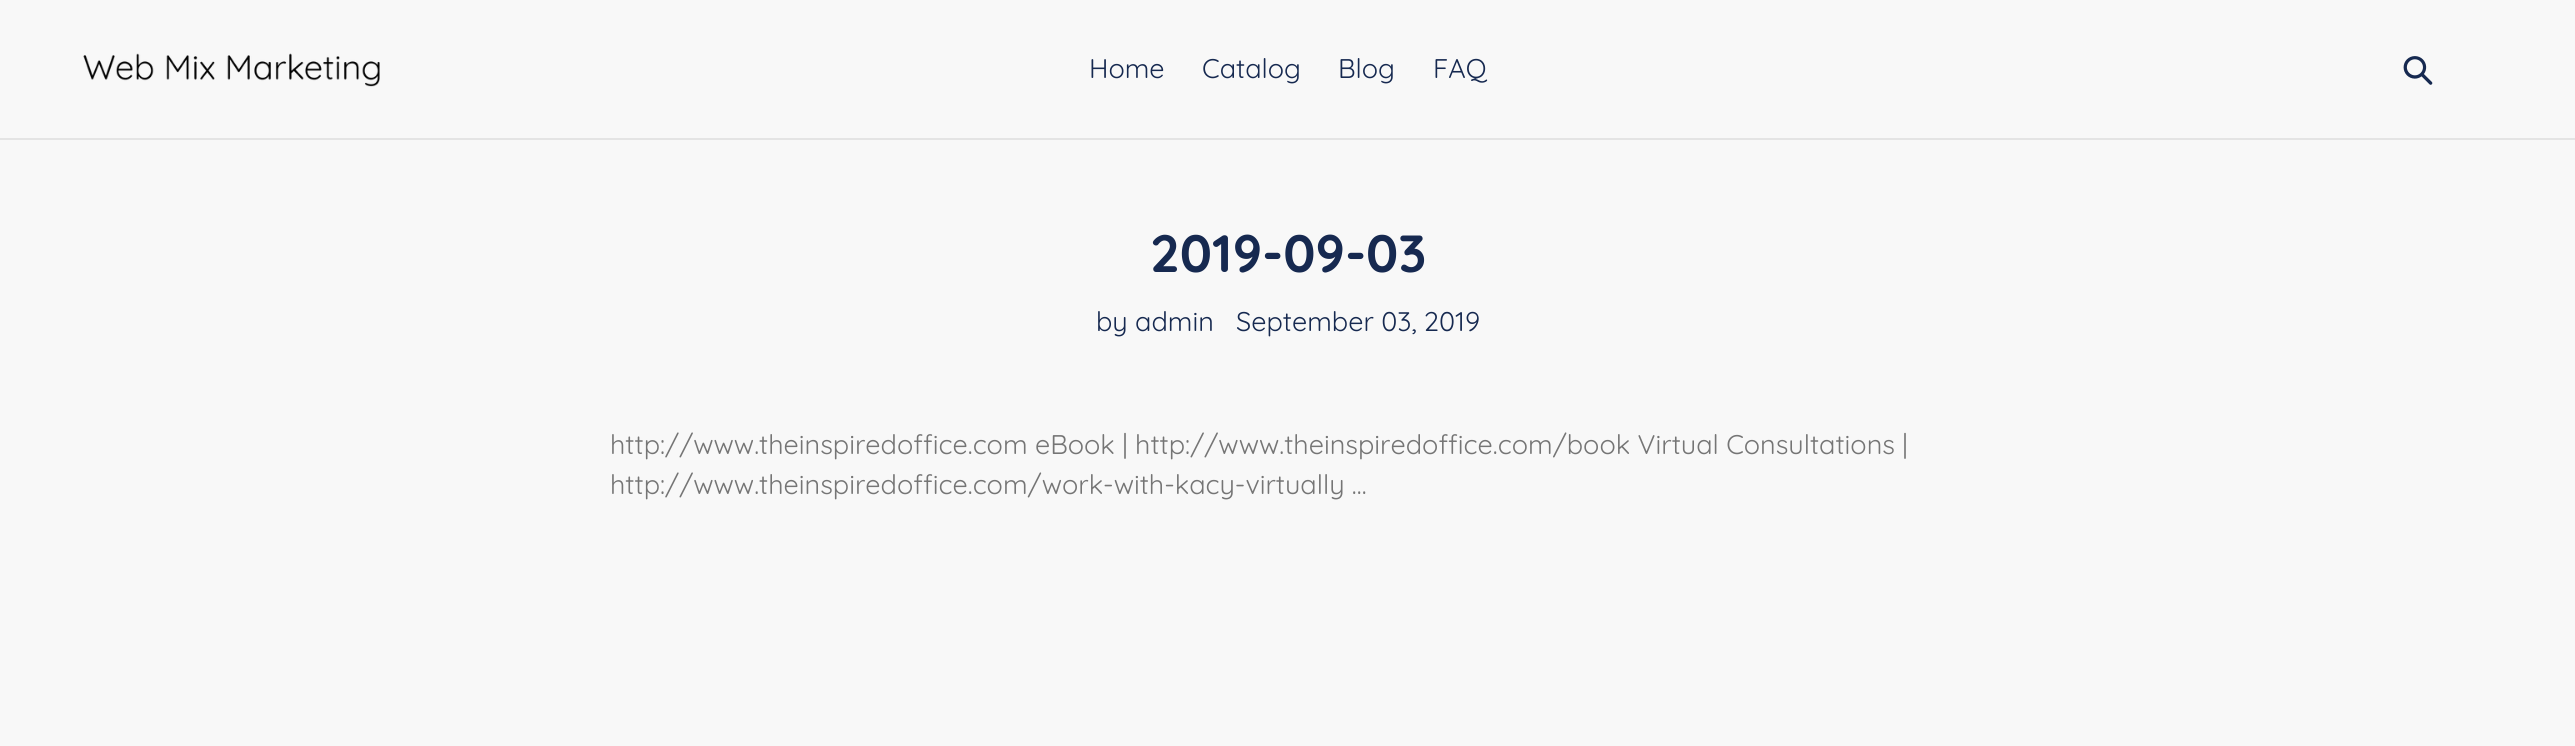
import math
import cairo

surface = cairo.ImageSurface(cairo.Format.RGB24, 2575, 746)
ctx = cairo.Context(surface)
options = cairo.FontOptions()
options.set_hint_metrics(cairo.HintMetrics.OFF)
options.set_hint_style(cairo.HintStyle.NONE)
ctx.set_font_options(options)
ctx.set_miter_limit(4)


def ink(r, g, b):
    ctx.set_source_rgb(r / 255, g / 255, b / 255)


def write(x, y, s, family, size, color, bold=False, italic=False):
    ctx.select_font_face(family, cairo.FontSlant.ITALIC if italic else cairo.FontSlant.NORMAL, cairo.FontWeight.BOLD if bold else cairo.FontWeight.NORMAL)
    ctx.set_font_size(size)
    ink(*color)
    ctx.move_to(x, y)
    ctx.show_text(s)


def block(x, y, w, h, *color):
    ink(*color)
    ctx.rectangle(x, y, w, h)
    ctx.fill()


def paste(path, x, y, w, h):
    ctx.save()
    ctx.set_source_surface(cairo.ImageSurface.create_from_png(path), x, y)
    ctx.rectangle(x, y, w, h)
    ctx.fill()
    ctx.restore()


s1 = dict(family="Quicksand", size=27, color=(22, 41, 80))
s2 = dict(family="Quicksand", size=52.5, color=(22, 41, 80), bold=True)
s3 = dict(family="Quicksand", size=27, color=(117, 117, 117))

ink(248, 248, 248)
ctx.paint()
block(0, 138, 2575, 2, 228, 228, 228)
paste("pic1.png", 83, 53, 297, 34)
write(1089, 78, "Home", **s1)
write(1202, 78, "Catalog", **s1)
write(1338, 78, "Blog", **s1)
write(1433, 78, "FAQ", **s1)
paste("pic2.png", 2403, 56, 30, 29)
write(1150, 272, "2019-09-03", **s2)
write(1096, 331, "by admin", **s1)
write(1236, 331, "September 03, 2019", **s1)
write(610, 454, "http://www.theinspiredoffice.com eBook | http://www.theinspiredoffice.com/book Virtual Consultations |", **s3)
write(610, 494, "http://www.theinspiredoffice.com/work-with-kacy-virtually ...", **s3)
surface.write_to_png("screenshot.png")
